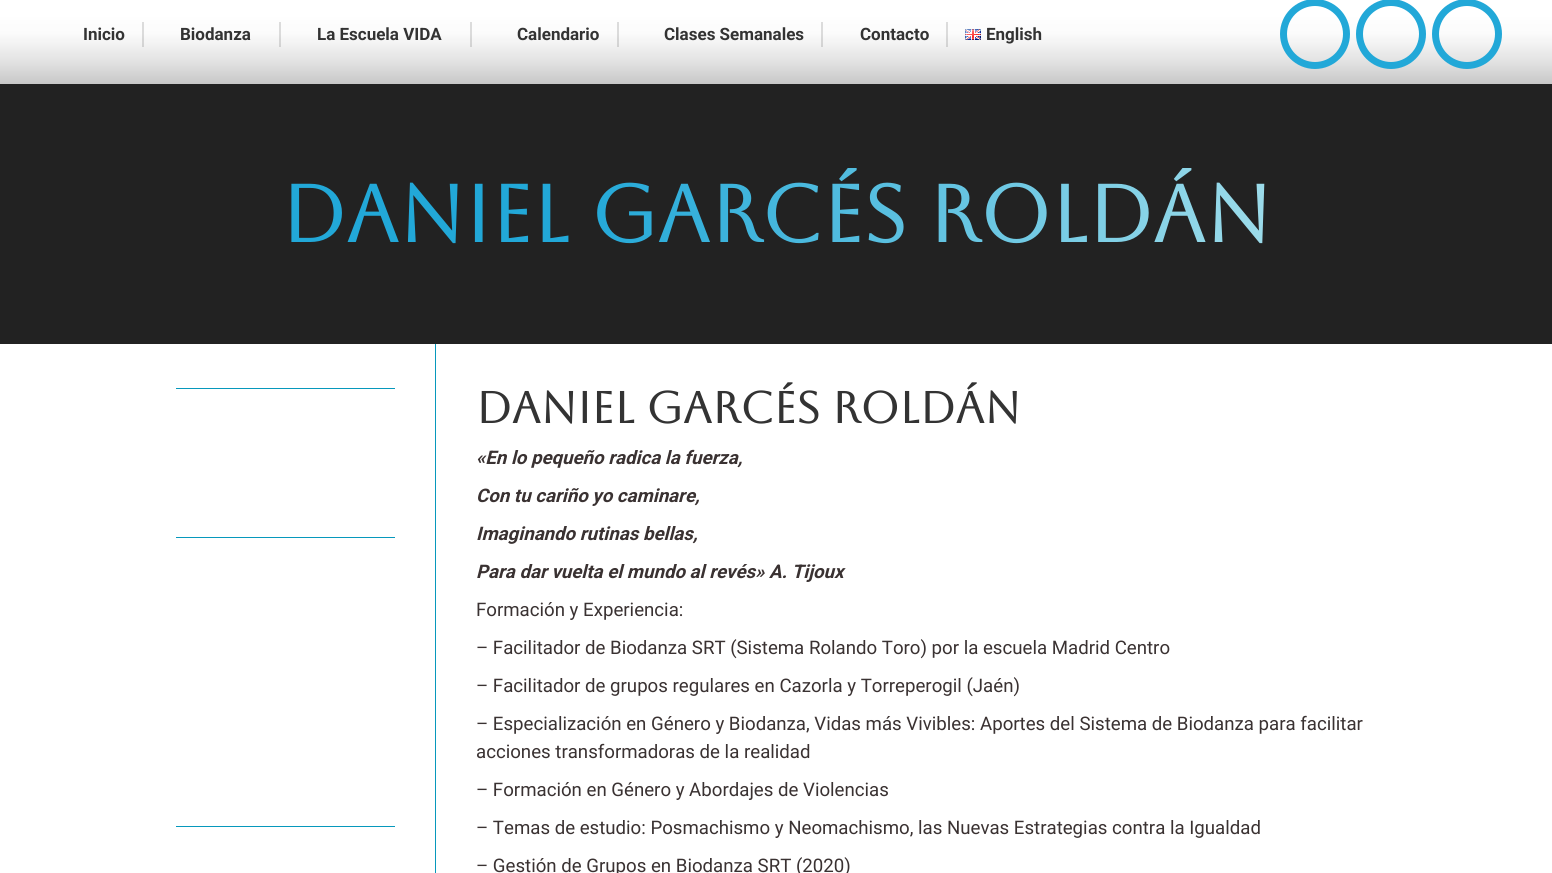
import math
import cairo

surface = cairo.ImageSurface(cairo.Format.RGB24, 1552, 873)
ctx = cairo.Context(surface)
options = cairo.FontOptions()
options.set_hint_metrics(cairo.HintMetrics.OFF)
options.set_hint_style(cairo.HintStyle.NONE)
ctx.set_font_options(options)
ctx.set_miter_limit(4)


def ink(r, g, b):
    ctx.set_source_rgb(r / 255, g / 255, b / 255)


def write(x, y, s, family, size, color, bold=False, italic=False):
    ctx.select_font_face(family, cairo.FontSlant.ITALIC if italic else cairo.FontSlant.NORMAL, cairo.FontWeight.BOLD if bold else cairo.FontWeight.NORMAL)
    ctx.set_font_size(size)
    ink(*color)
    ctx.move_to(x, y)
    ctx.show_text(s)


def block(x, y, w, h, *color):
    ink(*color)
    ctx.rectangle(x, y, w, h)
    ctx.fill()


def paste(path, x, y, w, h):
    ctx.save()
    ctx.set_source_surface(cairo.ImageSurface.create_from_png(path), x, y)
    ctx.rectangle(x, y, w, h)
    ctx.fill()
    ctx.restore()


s1 = dict(family="Roboto", size=17, color=(51, 51, 51), bold=True)
s2 = dict(family="Aboreto", size=44, color=(51, 51, 51), bold=True)
s3 = dict(family="Roboto", size=18.65, color=(58, 50, 50), bold=True, italic=True)
s4 = dict(family="Roboto", size=18.65, color=(58, 50, 50))

ink(34, 34, 34)
ctx.paint()
gradient = cairo.LinearGradient(776, 84, 776, -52)
gradient.add_color_stop_rgba(0, 1, 1, 1, 0.75)
gradient.add_color_stop_rgba(0.07, 1, 1, 1, 0.8)
gradient.add_color_stop_rgba(0.15, 1, 1, 1, 0.86)
gradient.add_color_stop_rgba(0.22, 1, 1, 1, 0.9)
gradient.add_color_stop_rgba(0.29, 1, 1, 1, 0.94)
gradient.add_color_stop_rgba(0.37, 1, 1, 1, 0.98)
gradient.add_color_stop_rgba(0.44, 1, 1, 1, 0.99)
gradient.add_color_stop_rgba(0.51, 1, 1, 1, 1)
ctx.set_source(gradient)
ctx.rectangle(0, 0, 1552, 84)
ctx.fill()
write(83, 40, "Inicio", **s1)
ctx.set_source_rgba(0.067, 0.067, 0.067, 0.14)
ctx.rectangle(142, 22, 2, 25)
ctx.fill()
write(180, 40, "Biodanza", **s1)
ctx.set_source_rgba(0.067, 0.067, 0.067, 0.14)
ctx.rectangle(279, 22, 2, 25)
ctx.fill()
write(317, 40, "La Escuela VIDA", **s1)
ctx.set_source_rgba(0.067, 0.067, 0.067, 0.14)
ctx.rectangle(470, 22, 2, 25)
ctx.fill()
write(517, 40, "Calendario", **s1)
ctx.set_source_rgba(0.067, 0.067, 0.067, 0.14)
ctx.rectangle(617, 22, 2, 25)
ctx.fill()
write(664, 40, "Clases Semanales", **s1)
ctx.set_source_rgba(0.067, 0.067, 0.067, 0.14)
ctx.rectangle(821, 22, 2, 25)
ctx.fill()
write(860, 40, "Contacto", **s1)
ctx.set_source_rgba(0.067, 0.067, 0.067, 0.14)
ctx.rectangle(946, 22, 2, 25)
ctx.fill()
paste("pic1.png", 965, 29, 16, 11)
write(986, 40, "English", **s1)
ctx.new_path()
ctx.arc(1315, 34, 31.5, 0, 2 * math.pi)
ink(34, 168, 216)
ctx.set_line_width(7)
ctx.stroke()
ctx.arc(1391, 34, 31.5, 0, 2 * math.pi)
ctx.stroke()
ctx.arc(1467, 34, 31.5, 0, 2 * math.pi)
ctx.stroke()
ctx.select_font_face("Aboreto", cairo.FontSlant.NORMAL, cairo.FontWeight.BOLD)
ctx.set_font_size(80)
gradient = cairo.LinearGradient(281, 214, 1271, 214)
gradient.add_color_stop_rgba(0.3, 0.133, 0.659, 0.847, 1)
gradient.add_color_stop_rgba(1, 0.616, 0.863, 0.918, 1)
ctx.set_source(gradient)
ctx.move_to(281, 242)
ctx.show_text("Daniel Garcés Roldán")
gradient = cairo.LinearGradient(776, 0, 776, 873)
gradient.add_color_stop_rgba(0, 1, 1, 1, 0.75)
gradient.add_color_stop_rgba(0.01, 1, 1, 1, 0.8)
gradient.add_color_stop_rgba(0.01, 1, 1, 1, 0.86)
gradient.add_color_stop_rgba(0.02, 1, 1, 1, 0.9)
gradient.add_color_stop_rgba(0.03, 1, 1, 1, 0.94)
gradient.add_color_stop_rgba(0.06, 1, 1, 1, 0.98)
gradient.add_color_stop_rgba(0.07, 1, 1, 1, 0.99)
gradient.add_color_stop_rgba(0.08, 1, 1, 1, 1)
ctx.set_source(gradient)
ctx.rectangle(0, 344, 1552, 529)
ctx.fill()
block(435, 344, 1, 529, 7, 152, 188)
block(176, 388, 219, 1, 7, 152, 188)
block(176, 537, 219, 1, 7, 152, 188)
block(176, 826, 219, 1, 7, 152, 188)
write(476, 423, "Daniel Garcés Roldán", **s2)
write(476, 464, "«En lo pequeño radica la fuerza,", **s3)
write(476, 502, "Con tu cariño yo caminare,", **s3)
write(476, 540, "Imaginando rutinas bellas,", **s3)
write(476, 578, "Para dar vuelta el mundo al revés» A. Tijoux", **s3)
write(476, 616, "Formación y Experiencia:", **s4)
write(476, 654, "– Facilitador de Biodanza SRT (Sistema Rolando Toro) por la escuela Madrid Centro", **s4)
write(476, 692, "– Facilitador de grupos regulares en Cazorla y Torreperogil (Jaén)", **s4)
write(476, 730, "– Especialización en Género y Biodanza, Vidas más Vivibles: Aportes del Sistema de Biodanza para facilitar", **s4)
write(476, 758, "acciones transformadoras de la realidad", **s4)
write(476, 796, "– Formación en Género y Abordajes de Violencias", **s4)
write(476, 834, "– Temas de estudio: Posmachismo y Neomachismo, las Nuevas Estrategias contra la Igualdad", **s4)
write(476, 872, "– Gestión de Grupos en Biodanza SRT (2020)", **s4)
surface.write_to_png("screenshot.png")
